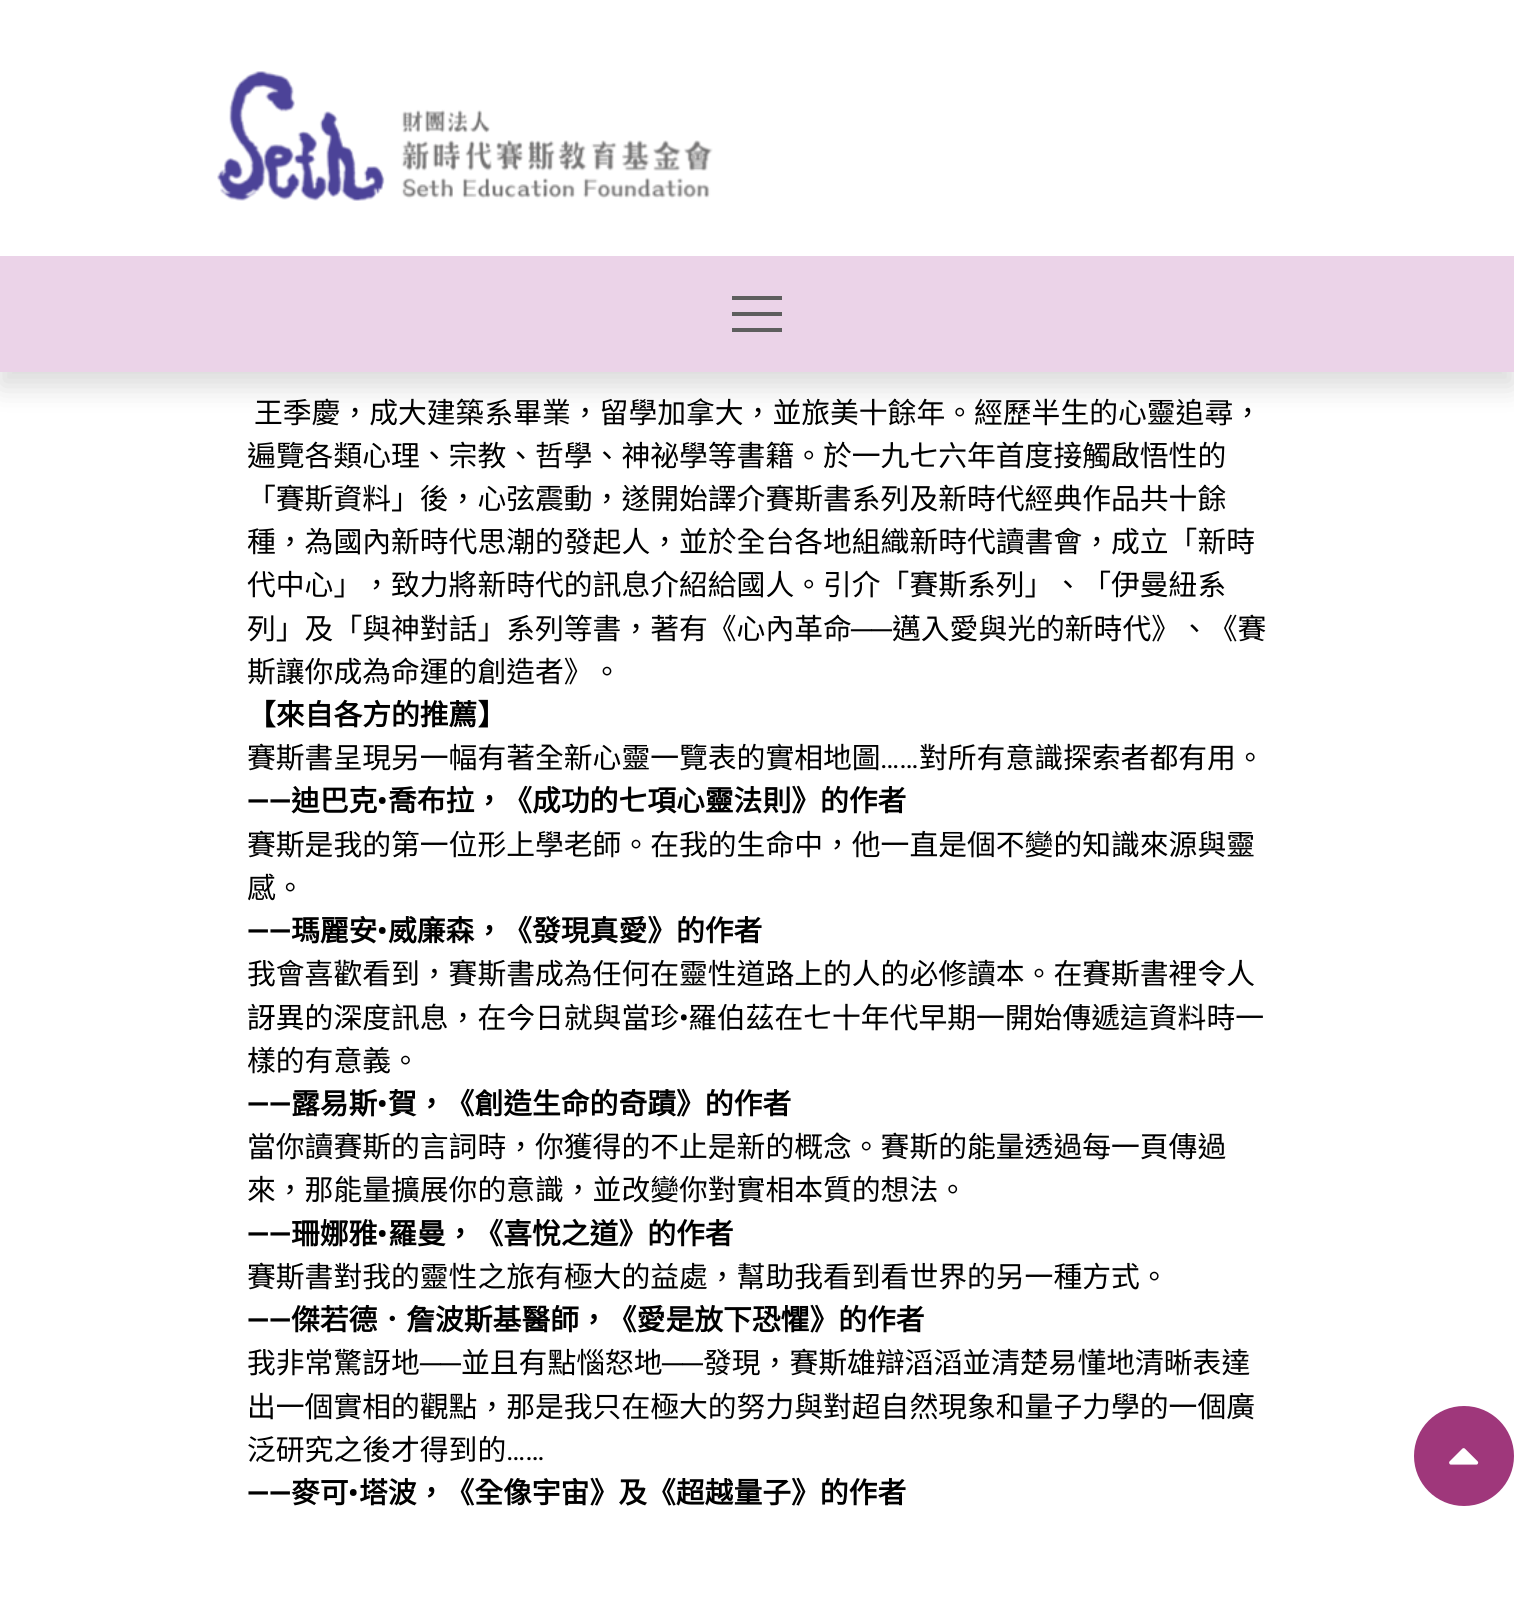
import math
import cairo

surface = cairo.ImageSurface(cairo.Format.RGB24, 1514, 1606)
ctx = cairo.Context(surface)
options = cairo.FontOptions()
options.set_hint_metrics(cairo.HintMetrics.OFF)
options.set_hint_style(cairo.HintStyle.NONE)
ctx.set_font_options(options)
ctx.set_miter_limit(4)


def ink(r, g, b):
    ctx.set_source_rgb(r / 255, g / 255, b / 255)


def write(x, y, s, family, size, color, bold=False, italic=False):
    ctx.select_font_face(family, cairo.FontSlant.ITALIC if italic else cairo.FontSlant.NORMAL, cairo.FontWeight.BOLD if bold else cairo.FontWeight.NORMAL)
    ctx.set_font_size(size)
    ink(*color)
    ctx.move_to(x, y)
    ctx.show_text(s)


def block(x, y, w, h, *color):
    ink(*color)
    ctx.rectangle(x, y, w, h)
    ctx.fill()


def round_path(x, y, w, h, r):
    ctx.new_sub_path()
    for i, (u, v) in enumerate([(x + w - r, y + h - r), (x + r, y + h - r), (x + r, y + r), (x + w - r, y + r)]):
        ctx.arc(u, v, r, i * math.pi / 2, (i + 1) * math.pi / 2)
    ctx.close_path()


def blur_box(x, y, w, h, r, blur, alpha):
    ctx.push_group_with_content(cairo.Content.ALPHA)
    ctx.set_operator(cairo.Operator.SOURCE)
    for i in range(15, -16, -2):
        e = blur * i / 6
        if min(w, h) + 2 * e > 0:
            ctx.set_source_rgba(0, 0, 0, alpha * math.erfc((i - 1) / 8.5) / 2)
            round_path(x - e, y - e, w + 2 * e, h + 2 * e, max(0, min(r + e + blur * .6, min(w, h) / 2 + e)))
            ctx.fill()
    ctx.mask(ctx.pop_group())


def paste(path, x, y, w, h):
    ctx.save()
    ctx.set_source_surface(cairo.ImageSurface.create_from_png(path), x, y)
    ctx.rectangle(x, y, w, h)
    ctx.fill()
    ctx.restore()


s1 = dict(family="Noto Sans CJK TC", size=28.8, color=(0, 0, 0))
s2 = dict(family="Liberation Sans", size=28.8, color=(0, 0, 0))
s3 = dict(family="Noto Sans CJK TC", size=28.8, color=(0, 0, 0), bold=True)
s4 = dict(family="Roboto", size=28.8, color=(0, 0, 0))
s5 = dict(family="Roboto", size=28.8, color=(0, 0, 0), bold=True)

ink(255, 255, 255)
ctx.paint()
ink(0, 0, 0)
blur_box(0, 14, 1514, 372, 0, 14.5, 0.15)
block(0, 0, 1514, 256, 255, 255, 255)
paste("pic1.png", 217, 71, 496, 130)
block(0, 256, 1514, 116, 235, 211, 232)
block(732, 312, 50, 4, 94, 94, 94)
block(732, 296, 50, 4, 94, 94, 94)
block(732, 328, 50, 4, 94, 94, 94)
write(254, 423, "王季慶，成大建築系畢業，留學加拿大，並旅美十餘年。經歷半生的心靈追尋，", **s1)
write(247, 466, "遍覽各類心理、宗教、哲學、神祕學等書籍。於一九七六年首度接觸啟悟性的", **s1)
write(247, 509, "「賽斯資料」後，心弦震動，遂開始譯介賽斯書系列及新時代經典作品共十餘", **s1)
write(247, 552, "種，為國內新時代思潮的發起人，並於全台各地組織新時代讀書會，成立「新時", **s1)
write(247, 595, "代中心」，致力將新時代的訊息介紹給國人。引介「賽斯系列」、「伊曼紐系", **s1)
write(247, 639, "列」及「與神對話」系列等書，著有《心內革命", **s1)
write(851, 639, "──", **s2)
write(892, 639, "邁入愛與光的新時代》、《賽", **s1)
write(247, 682, "斯讓你成為命運的創造者》。", **s1)
write(247, 725, "【來自各方的推薦】", **s3)
write(247, 768, "賽斯書呈現另一幅有著全新心靈一覽表的實相地圖", **s1)
write(880, 768, "……", **s4)
write(919, 768, "對所有意識探索者都有用。", **s1)
write(247, 811, "——", **s5)
write(291, 811, "迪巴克", **s3)
write(377, 811, "•", **s5)
write(388, 811, "喬布拉，《成功的七項心靈法則》的作者", **s3)
write(247, 855, "賽斯是我的第一位形上學老師。在我的生命中，他一直是個不變的知識來源與靈", **s1)
write(247, 898, "感。", **s1)
write(247, 941, "——", **s5)
write(291, 941, "瑪麗安", **s3)
write(377, 941, "•", **s5)
write(388, 941, "威廉森，《發現真愛》的作者", **s3)
write(247, 984, "我會喜歡看到，賽斯書成為任何在靈性道路上的人的必修讀本。在賽斯書裡令人", **s1)
write(247, 1028, "訝異的深度訊息，在今日就與當珍", **s1)
write(679, 1028, "•", **s4)
write(688, 1028, "羅伯茲在七十年代早期一開始傳遞這資料時一", **s1)
write(247, 1071, "樣的有意義。", **s1)
write(247, 1114, "——", **s5)
write(291, 1114, "露易斯", **s3)
write(377, 1114, "•", **s5)
write(388, 1114, "賀，《創造生命的奇蹟》的作者", **s3)
write(247, 1157, "當你讀賽斯的言詞時，你獲得的不止是新的概念。賽斯的能量透過每一頁傳過", **s1)
write(247, 1200, "來，那能量擴展你的意識，並改變你對實相本質的想法。", **s1)
write(247, 1244, "——", **s5)
write(291, 1244, "珊娜雅", **s3)
write(377, 1244, "•", **s5)
write(388, 1244, "羅曼，《喜悅之道》的作者", **s3)
write(247, 1287, "賽斯書對我的靈性之旅有極大的益處，幫助我看到看世界的另一種方式。", **s1)
write(247, 1330, "——", **s5)
write(291, 1330, "傑若德．詹波斯基醫師，《愛是放下恐懼》的作者", **s3)
write(247, 1373, "我非常驚訝地", **s1)
write(420, 1373, "──", **s2)
write(461, 1373, "並且有點惱怒地", **s1)
write(662, 1373, "──", **s2)
write(703, 1373, "發現，賽斯雄辯滔滔並清楚易懂地清晰表達", **s1)
write(247, 1417, "出一個實相的觀點，那是我只在極大的努力與對超自然現象和量子力學的一個廣", **s1)
write(247, 1460, "泛研究之後才得到的", **s1)
write(506, 1460, "……", **s4)
write(247, 1503, "——", **s5)
write(291, 1503, "麥可", **s3)
write(348, 1503, "•", **s5)
write(359, 1503, "塔波，《全像宇宙》及《超越量子》的作者", **s3)
ink(159, 55, 123)
ctx.new_path()
ctx.arc(1464, 1456, 50, 0, 2 * math.pi)
ctx.fill()
paste("pic2.png", 1449, 1448, 30, 17)
surface.write_to_png("screenshot.png")
